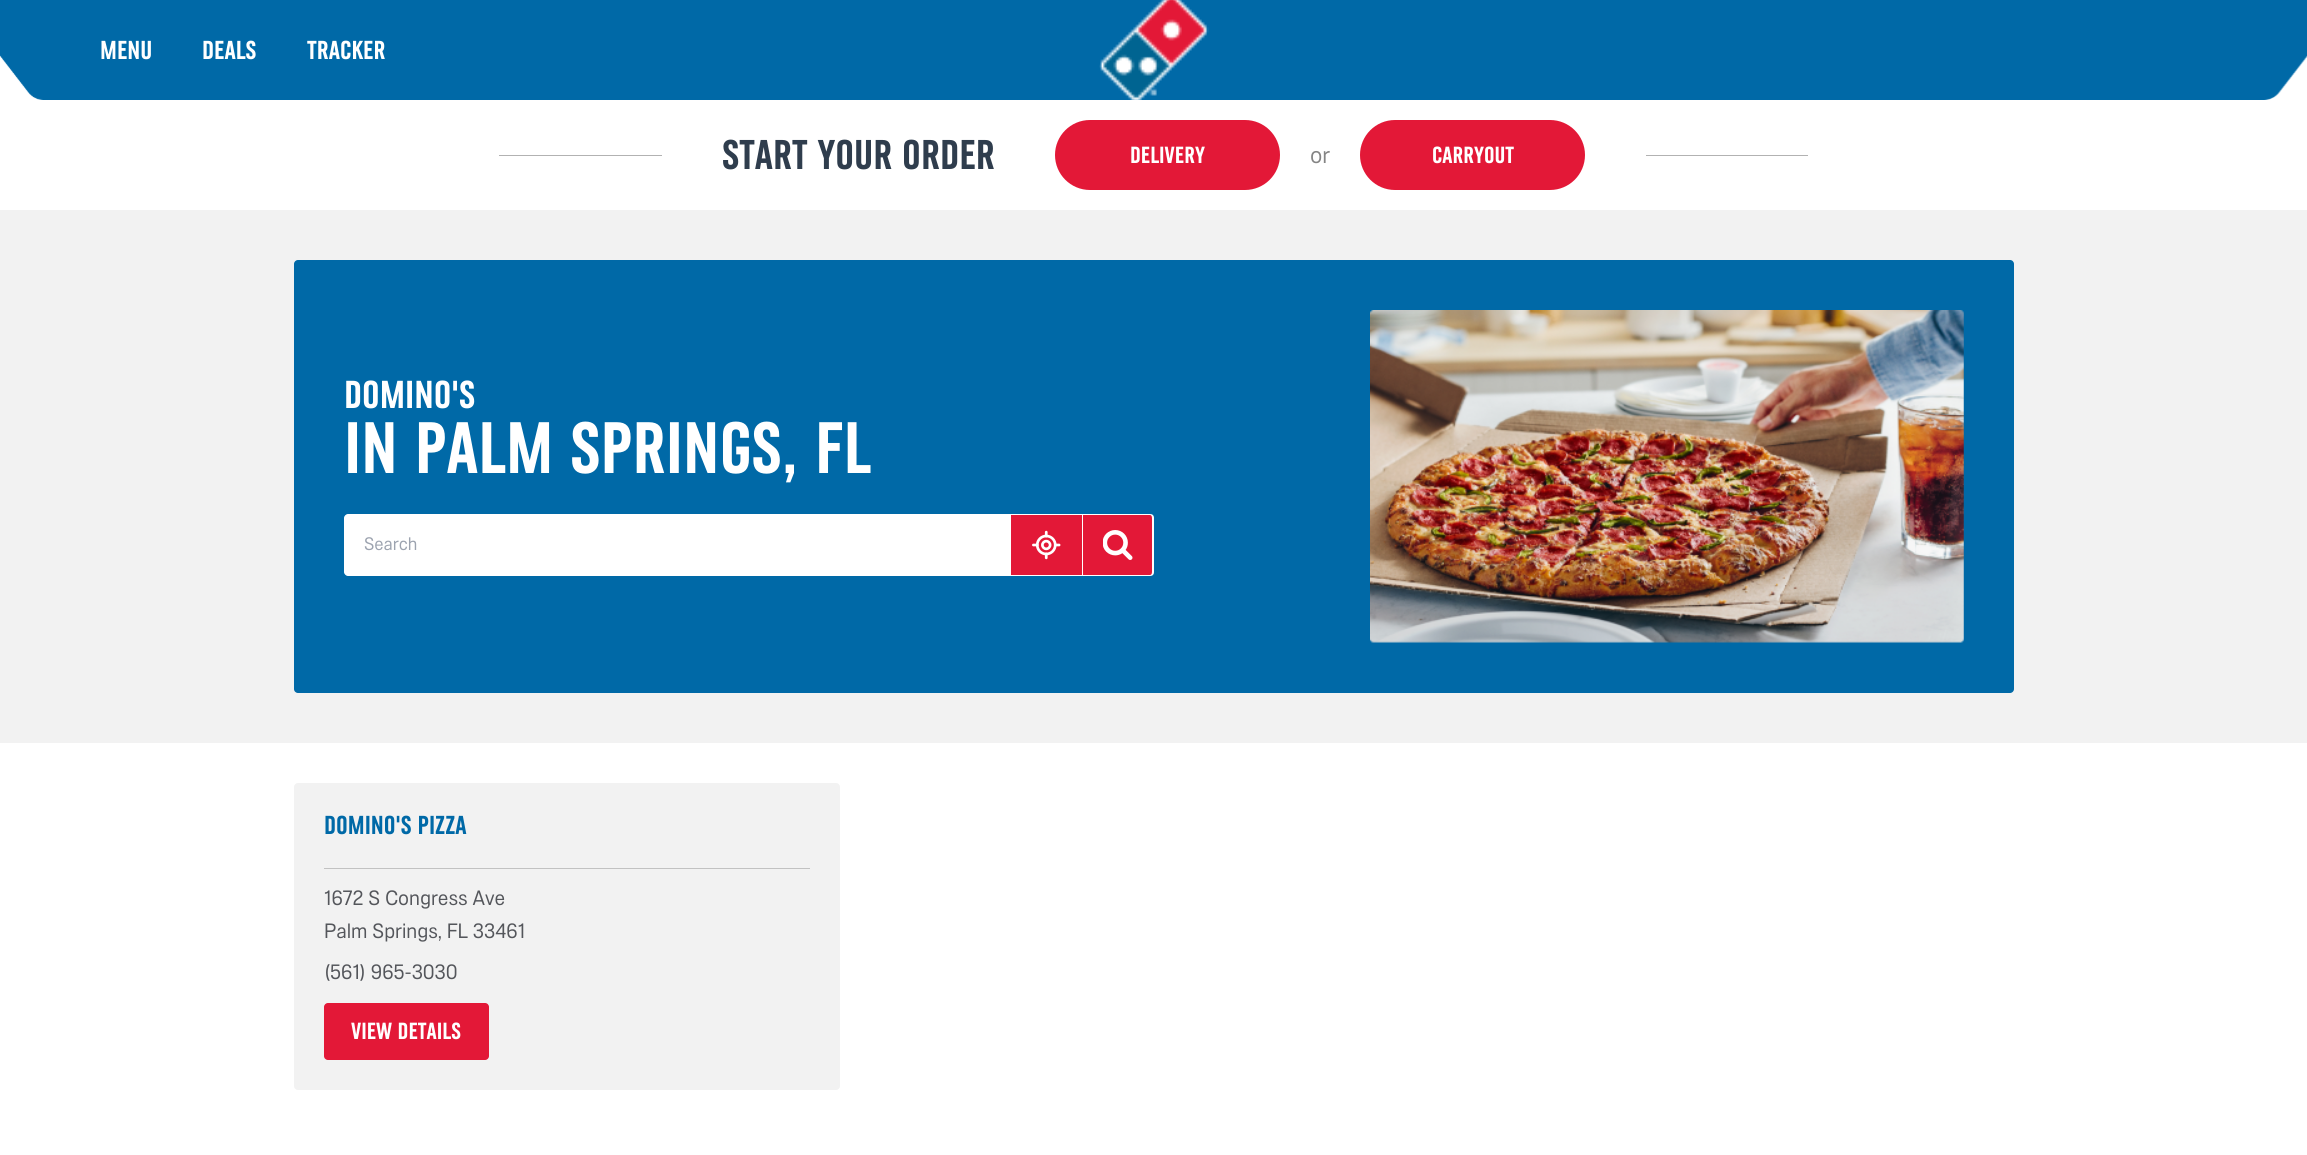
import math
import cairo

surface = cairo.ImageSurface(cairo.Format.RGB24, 2307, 1155)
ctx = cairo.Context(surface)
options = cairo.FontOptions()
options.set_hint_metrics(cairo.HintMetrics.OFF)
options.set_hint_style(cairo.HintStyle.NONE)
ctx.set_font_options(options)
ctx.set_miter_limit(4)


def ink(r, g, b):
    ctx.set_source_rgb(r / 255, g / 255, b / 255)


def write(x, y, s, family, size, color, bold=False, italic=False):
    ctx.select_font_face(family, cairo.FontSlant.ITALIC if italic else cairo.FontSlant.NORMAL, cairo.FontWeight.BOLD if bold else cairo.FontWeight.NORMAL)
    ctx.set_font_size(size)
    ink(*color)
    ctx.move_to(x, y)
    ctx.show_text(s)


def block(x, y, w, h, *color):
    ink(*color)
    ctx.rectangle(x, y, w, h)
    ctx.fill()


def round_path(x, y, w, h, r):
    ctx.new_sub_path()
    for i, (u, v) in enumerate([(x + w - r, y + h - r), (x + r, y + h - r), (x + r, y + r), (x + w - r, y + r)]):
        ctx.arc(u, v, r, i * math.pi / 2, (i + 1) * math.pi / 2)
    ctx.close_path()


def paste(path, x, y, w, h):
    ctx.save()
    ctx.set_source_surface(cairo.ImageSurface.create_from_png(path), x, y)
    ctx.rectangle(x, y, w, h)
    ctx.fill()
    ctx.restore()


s1 = dict(family="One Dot", size=25, color=(255, 255, 255), bold=True)
s2 = dict(family="One Dot", size=40, color=(47, 61, 77), bold=True)
s3 = dict(family="One Dot", size=22.5, color=(255, 255, 255), bold=True)
s4 = dict(family="One Dot", size=22.5, color=(132, 132, 132))
s5 = dict(family="One Dot", size=37.5, color=(255, 255, 255), bold=True)
s6 = dict(family="One Dot", size=70, color=(255, 255, 255), bold=True)
s7 = dict(family="One Dot", size=17.5, color=(156, 163, 175))
s8 = dict(family="One Dot", size=25, color=(0, 105, 167), bold=True)
s9 = dict(family="One Dot", size=20, color=(84, 86, 91))

ink(255, 255, 255)
ctx.paint()
paste("pic1.png", 0, 0, 75, 100)
block(75, 0, 2158, 100, 0, 105, 167)
write(100, 59, "MENU", **s1)
write(202, 59, "DEALS", **s1)
write(307, 59, "TRACKER", **s1)
paste("pic2.png", 1099, 0, 110, 100)
paste("pic3.png", 2233, 0, 74, 100)
block(499, 155, 163, 1, 178, 178, 178)
write(722, 169, "START YOUR ORDER", **s2)
ink(227, 24, 55)
round_path(1055, 120, 225, 70, 35)
ctx.fill()
write(1130, 163, "DELIVERY", **s3)
write(1310, 163, "or", **s4)
ink(227, 24, 55)
round_path(1360, 120, 225, 70, 35)
ctx.fill()
write(1432, 163, "CARRYOUT", **s3)
block(1646, 155, 162, 1, 178, 178, 178)
block(0, 210, 2307, 533, 242, 242, 242)
ink(0, 105, 167)
round_path(294, 260, 1720, 433, 4)
ctx.fill()
write(344, 408, "DOMINO'S", **s5)
write(344, 473, "IN PALM SPRINGS, FL", **s6)
ctx.new_path()
ctx.move_to(348, 514)
ctx.line_to(1010, 514)
ctx.line_to(1010, 576)
ctx.line_to(348, 576)
ctx.curve_to(346, 576, 344, 574, 344, 572)
ctx.line_to(344, 518)
ctx.curve_to(344, 516, 346, 514, 348, 514)
ctx.close_path()
ctx.fill()
write(364, 550, "Search", **s7)
ink(227, 24, 55)
ctx.rectangle(1010.5, 514.5, 72, 61)
ctx.fill_preserve()
ink(255, 255, 255)
ctx.set_line_width(1)
ctx.stroke()
paste("pic4.png", 1032, 530, 29, 30)
ink(227, 24, 55)
ctx.new_path()
ctx.move_to(1083, 515)
ctx.line_to(1150.5, 515)
ctx.curve_to(1152, 515, 1153, 516, 1153, 517.5)
ctx.line_to(1153, 572.5)
ctx.curve_to(1153, 574, 1152, 575, 1150.5, 575)
ctx.line_to(1083, 575)
ctx.close_path()
ctx.fill()
ink(255, 255, 255)
ctx.set_fill_rule(cairo.FillRule.EVEN_ODD)
ctx.new_path()
ctx.move_to(1082, 514)
ctx.line_to(1150, 514)
ctx.curve_to(1152, 514, 1154, 515, 1154, 518)
ctx.line_to(1154, 572)
ctx.curve_to(1154, 575, 1152, 576, 1150, 576)
ctx.line_to(1082, 576)
ctx.close_path()
ctx.move_to(1082, 515)
ctx.line_to(1150, 515)
ctx.curve_to(1151, 515, 1152, 516, 1152, 518)
ctx.line_to(1152, 572)
ctx.curve_to(1152, 574, 1151, 575, 1150, 575)
ctx.line_to(1082, 575)
ctx.close_path()
ctx.fill()
paste("pic5.png", 1103, 530, 30, 30)
paste("pic6.png", 1370, 310, 594, 333)
ink(242, 242, 242)
round_path(294, 783, 546, 307, 4)
ctx.fill()
write(324, 834, "DOMINO'S PIZZA", **s8)
block(324, 868, 486, 1, 194, 194, 194)
write(324, 905, "1672 S Congress Ave", **s9)
write(324, 938, "Palm Springs, FL 33461", **s9)
write(324, 979, "(561) 965-3030", **s9)
ink(227, 24, 55)
round_path(324, 1003, 165, 57, 4)
ctx.fill()
write(351, 1039, "VIEW DETAILS", **s3)
surface.write_to_png("screenshot.png")
